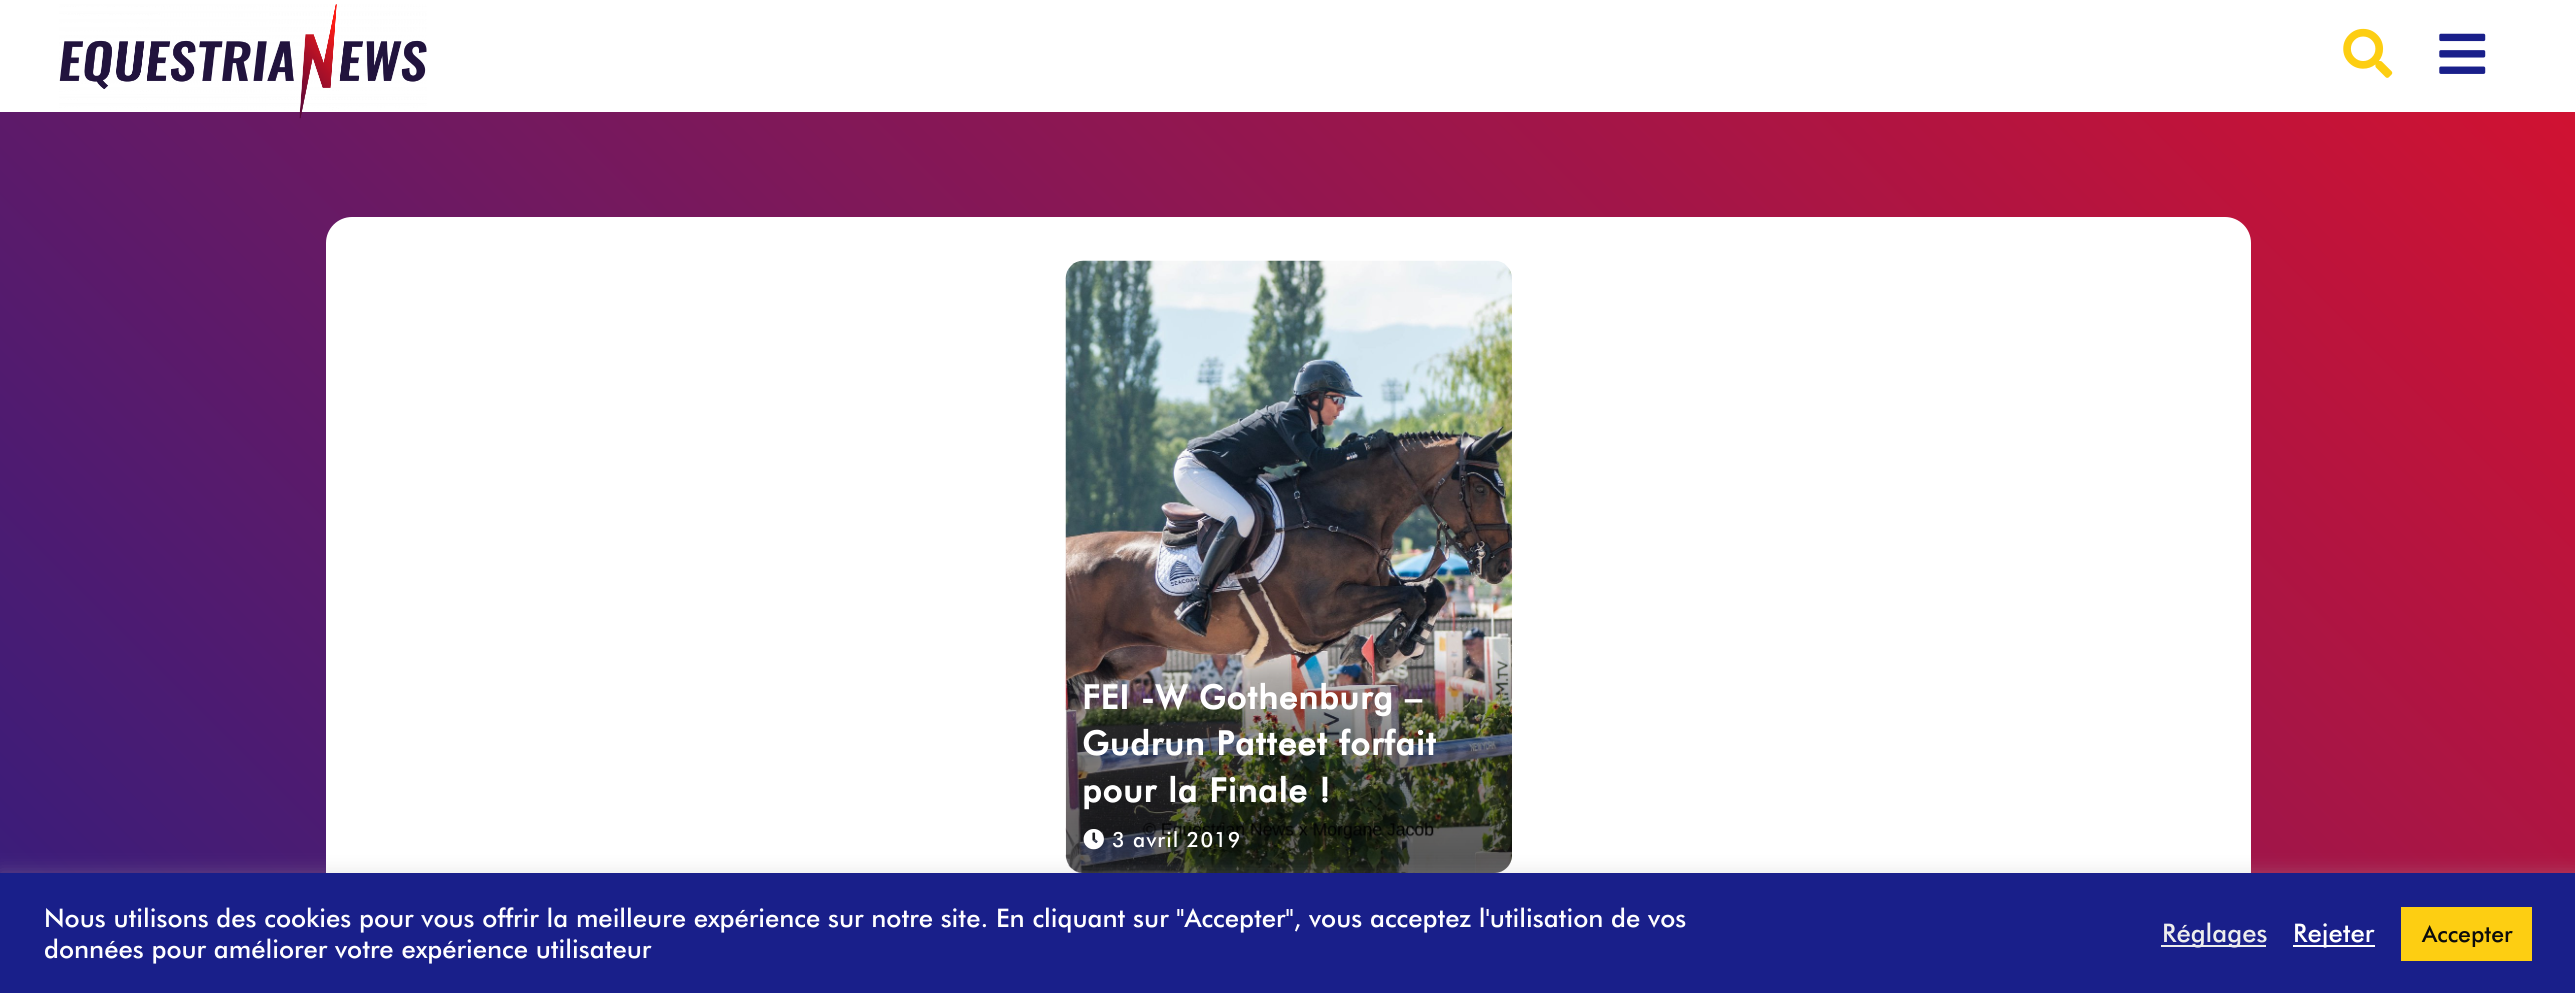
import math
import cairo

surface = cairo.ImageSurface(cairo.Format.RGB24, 2575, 993)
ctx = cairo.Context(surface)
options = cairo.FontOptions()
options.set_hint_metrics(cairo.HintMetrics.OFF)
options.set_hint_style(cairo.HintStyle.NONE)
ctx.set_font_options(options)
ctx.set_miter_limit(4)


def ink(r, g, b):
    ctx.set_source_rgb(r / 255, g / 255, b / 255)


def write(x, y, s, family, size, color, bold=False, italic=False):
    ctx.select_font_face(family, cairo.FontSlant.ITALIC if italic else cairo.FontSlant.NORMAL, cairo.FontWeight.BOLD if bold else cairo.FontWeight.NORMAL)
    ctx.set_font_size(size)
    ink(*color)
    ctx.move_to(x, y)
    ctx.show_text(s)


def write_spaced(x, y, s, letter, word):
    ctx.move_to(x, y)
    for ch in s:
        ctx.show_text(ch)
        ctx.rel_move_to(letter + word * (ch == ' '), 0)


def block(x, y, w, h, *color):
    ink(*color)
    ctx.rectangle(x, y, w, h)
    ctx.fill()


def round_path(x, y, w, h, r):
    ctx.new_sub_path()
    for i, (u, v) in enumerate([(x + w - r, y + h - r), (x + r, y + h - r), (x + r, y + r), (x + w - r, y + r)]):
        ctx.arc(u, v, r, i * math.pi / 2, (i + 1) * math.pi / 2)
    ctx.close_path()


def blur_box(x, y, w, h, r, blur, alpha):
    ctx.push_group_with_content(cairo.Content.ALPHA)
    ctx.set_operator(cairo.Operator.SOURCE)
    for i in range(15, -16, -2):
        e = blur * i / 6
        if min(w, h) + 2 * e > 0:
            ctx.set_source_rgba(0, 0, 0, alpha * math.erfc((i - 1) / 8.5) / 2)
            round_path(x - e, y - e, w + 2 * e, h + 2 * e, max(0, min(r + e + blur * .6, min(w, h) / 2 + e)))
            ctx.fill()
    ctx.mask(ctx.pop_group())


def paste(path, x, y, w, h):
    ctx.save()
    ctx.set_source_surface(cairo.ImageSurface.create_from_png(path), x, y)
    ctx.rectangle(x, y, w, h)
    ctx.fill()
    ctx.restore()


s1 = dict(family="Futura Medium", size=25.67, color=(255, 255, 255))
s2 = dict(family="Futura Medium", size=25.67, color=(237, 237, 237))
s3 = dict(family="Futura Medium", size=23, color=(12, 12, 12))

ink(255, 255, 255)
ctx.paint()
gradient = cairo.LinearGradient(420, 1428, 2156, -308)
gradient.add_color_stop_rgba(0, 0.208, 0.114, 0.49, 1)
gradient.add_color_stop_rgba(1, 0.816, 0.071, 0.196, 1)
ctx.set_source(gradient)
ctx.rectangle(0, 112, 2575, 761)
ctx.fill()
paste("pic1.png", 59, 4, 368, 115)
paste("pic2.png", 2343, 28, 50, 50)
paste("pic3.png", 2439, 33, 47, 41)
ink(255, 255, 255)
round_path(326, 217, 1925, 704, 26)
ctx.fill()
paste("pic4.png", 1065, 260, 447, 613)
gradient = cairo.LinearGradient(1289, 873, 1289, 656)
gradient.add_color_stop_rgba(0, 0, 0, 0, 0.6)
gradient.add_color_stop_rgba(0.6, 0, 0, 0, 0.42)
gradient.add_color_stop_rgba(0.9, 0, 0, 0, 0.18)
gradient.add_color_stop_rgba(1, 0, 0, 0, 0)
ctx.set_source(gradient)
round_path(1066, 656, 446, 217, 18)
ctx.fill()
ctx.select_font_face("Futura", cairo.FontSlant.NORMAL, cairo.FontWeight.BOLD)
ctx.set_font_size(33.25)
ink(255, 255, 255)
write_spaced(1082, 709, "FEI -W Gothenburg –", 1.05, 0)
write_spaced(1082, 755, "Gudrun Patteet forfait", 1.05, 0)
write_spaced(1082, 802, "pour la Finale !", 1.05, 0)
paste("pic5.png", 1083, 829, 21, 21)
ctx.select_font_face("Futura Medium")
ctx.set_font_size(21)
write_spaced(1112, 847, "3 avril 2019", 1.05, 0)
ink(172, 171, 171)
blur_box(0, 872, 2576, 120, 0, 9, 0.3)
block(0, 873, 2575, 120, 25, 31, 138)
write(44, 927, "Nous utilisons des cookies pour vous offrir la meilleure expérience sur notre site. En cliquant sur \"Accepter\", vous acceptez l'utilisation de vos", **s1)
write(44, 958, "données pour améliorer votre expérience utilisateur", **s1)
block(2161, 945, 105, 2, 237, 237, 237)
write(2162, 942, "Réglages", **s2)
block(2293, 945, 82, 2, 255, 255, 255)
write(2293, 942, "Rejeter", **s1)
block(2401, 907, 131, 54, 253, 206, 18)
write(2422, 942, "Accepter", **s3)
surface.write_to_png("screenshot.png")
